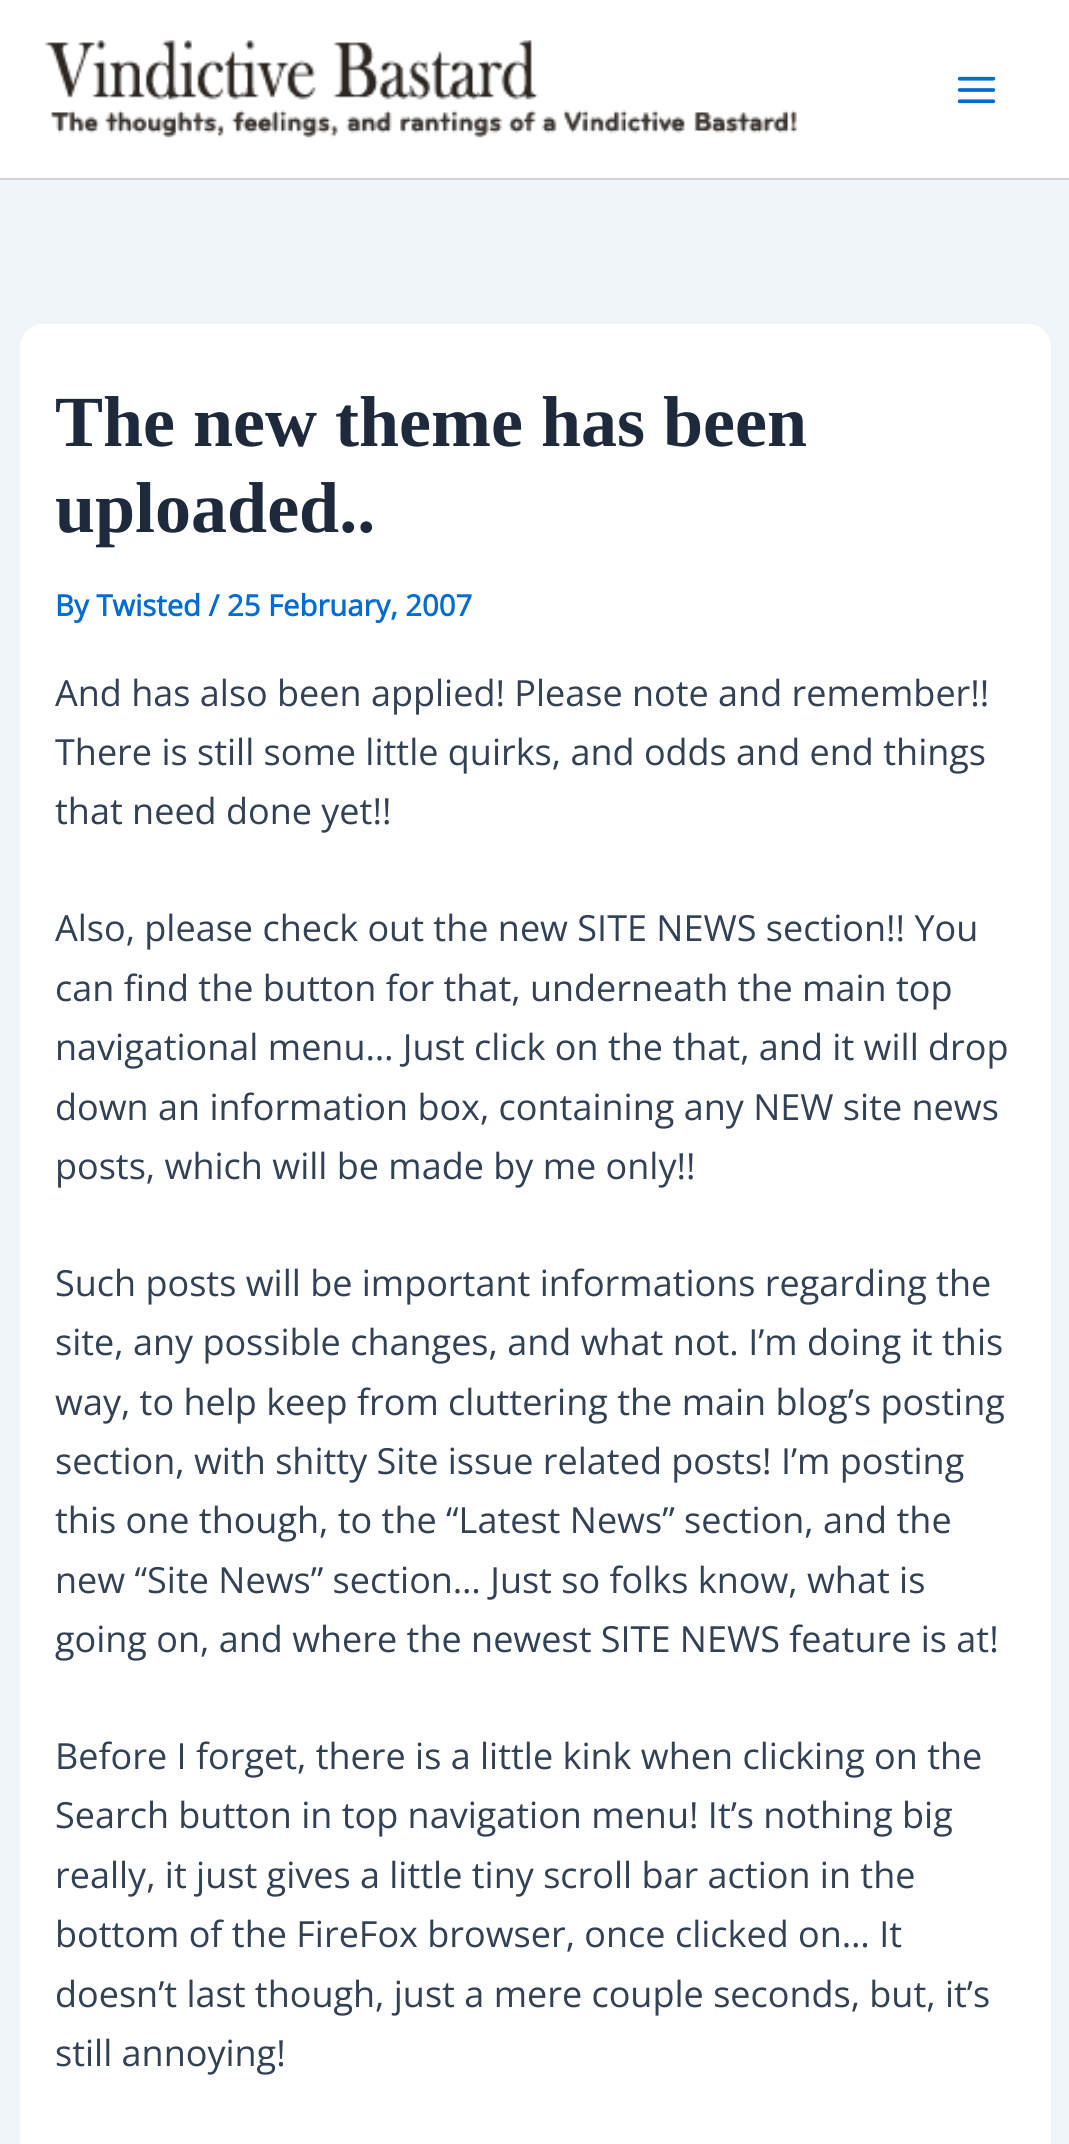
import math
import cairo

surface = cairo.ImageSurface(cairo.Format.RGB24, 1069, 2144)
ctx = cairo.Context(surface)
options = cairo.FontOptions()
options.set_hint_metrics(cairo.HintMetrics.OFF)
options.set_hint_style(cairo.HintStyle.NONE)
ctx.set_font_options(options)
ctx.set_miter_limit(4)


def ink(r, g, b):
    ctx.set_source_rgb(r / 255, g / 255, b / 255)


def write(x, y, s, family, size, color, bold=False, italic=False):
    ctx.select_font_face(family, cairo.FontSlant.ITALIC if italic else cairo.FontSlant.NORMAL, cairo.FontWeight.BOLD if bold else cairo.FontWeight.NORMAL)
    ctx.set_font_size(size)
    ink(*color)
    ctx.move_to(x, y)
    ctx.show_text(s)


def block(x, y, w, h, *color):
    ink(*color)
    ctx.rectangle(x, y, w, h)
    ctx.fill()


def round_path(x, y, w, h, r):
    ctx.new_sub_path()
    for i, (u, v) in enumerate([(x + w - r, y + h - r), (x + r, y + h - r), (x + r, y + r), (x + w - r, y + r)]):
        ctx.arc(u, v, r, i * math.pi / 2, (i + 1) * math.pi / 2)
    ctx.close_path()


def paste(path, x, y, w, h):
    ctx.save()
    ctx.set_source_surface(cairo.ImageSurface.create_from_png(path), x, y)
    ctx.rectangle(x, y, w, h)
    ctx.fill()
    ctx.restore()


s1 = dict(family="Liberation Serif", size=72, color=(30, 41, 59), bold=True)
s2 = dict(family="Open Sans", size=29.25, color=(4, 107, 210), bold=True)
s3 = dict(family="Open Sans", size=36, color=(51, 65, 85))

ink(240, 245, 250)
ctx.paint()
block(0, 0, 1069, 178, 255, 255, 255)
block(0, 178, 1069, 2, 209, 213, 219)
paste("pic1.png", 45, 40, 752, 98)
paste("pic2.png", 957, 76, 39, 28)
ink(255, 255, 255)
round_path(20, 324, 1031, 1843, 23)
ctx.fill()
write(55, 446, "The new theme has been", **s1)
write(55, 532, "uploaded..", **s1)
write(55, 616, "By Twisted / 25 February, 2007", **s2)
write(55, 706, "And has also been applied! Please note and remember!!", **s3)
write(55, 765, "There is still some little quirks, and odds and end things", **s3)
write(55, 824, "that need done yet!!", **s3)
write(55, 941, "Also, please check out the new SITE NEWS section!! You", **s3)
write(55, 1001, "can find the button for that, underneath the main top", **s3)
write(55, 1060, "navigational menu… Just click on the that, and it will drop", **s3)
write(55, 1120, "down an information box, containing any NEW site news", **s3)
write(55, 1179, "posts, which will be made by me only!!", **s3)
write(55, 1296, "Such posts will be important informations regarding the", **s3)
write(55, 1355, "site, any possible changes, and what not. I’m doing it this", **s3)
write(55, 1415, "way, to help keep from cluttering the main blog’s posting", **s3)
write(55, 1474, "section, with shitty Site issue related posts! I’m posting", **s3)
write(55, 1533, "this one though, to the “Latest News” section, and the", **s3)
write(55, 1593, "new “Site News” section… Just so folks know, what is", **s3)
write(55, 1652, "going on, and where the newest SITE NEWS feature is at!", **s3)
write(55, 1769, "Before I forget, there is a little kink when clicking on the", **s3)
write(55, 1828, "Search button in top navigation menu! It’s nothing big", **s3)
write(55, 1888, "really, it just gives a little tiny scroll bar action in the", **s3)
write(55, 1947, "bottom of the FireFox browser, once clicked on… It", **s3)
write(55, 2007, "doesn’t last though, just a mere couple seconds, but, it’s", **s3)
write(55, 2066, "still annoying!", **s3)
surface.write_to_png("screenshot.png")
